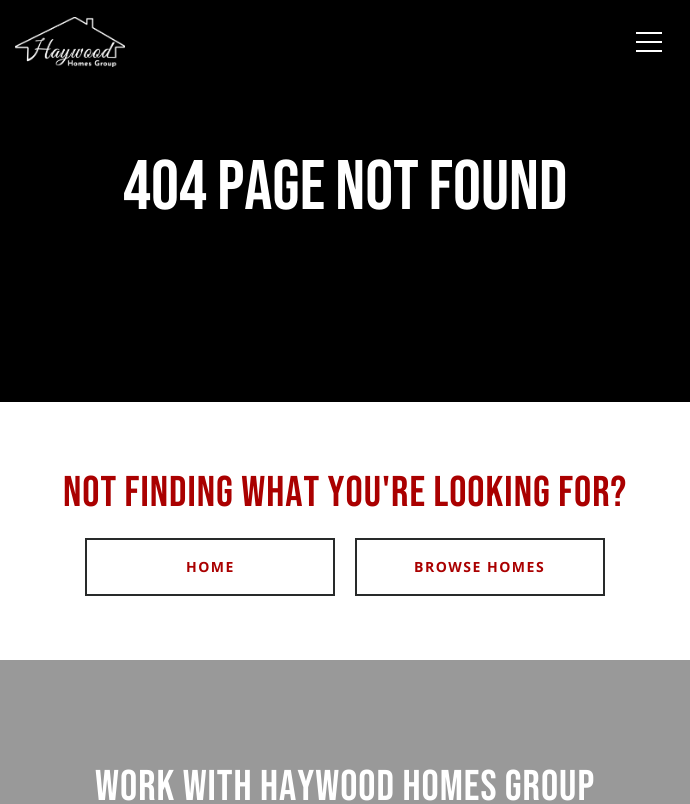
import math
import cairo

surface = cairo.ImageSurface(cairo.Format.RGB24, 690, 804)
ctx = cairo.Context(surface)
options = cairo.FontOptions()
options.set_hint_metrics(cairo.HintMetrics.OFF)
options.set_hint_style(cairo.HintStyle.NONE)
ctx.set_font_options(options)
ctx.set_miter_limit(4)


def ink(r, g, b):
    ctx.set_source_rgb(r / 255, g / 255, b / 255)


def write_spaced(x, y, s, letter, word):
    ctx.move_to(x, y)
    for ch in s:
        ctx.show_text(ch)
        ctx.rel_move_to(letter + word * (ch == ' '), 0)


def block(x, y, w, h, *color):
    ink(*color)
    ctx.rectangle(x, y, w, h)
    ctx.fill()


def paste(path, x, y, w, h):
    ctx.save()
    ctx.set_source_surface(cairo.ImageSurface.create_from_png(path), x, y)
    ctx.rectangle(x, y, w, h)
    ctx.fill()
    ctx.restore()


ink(255, 255, 255)
ctx.paint()
block(0, 0, 690, 402, 0, 0, 0)
paste("pic1.png", 15, 17, 110, 50)
block(636, 41, 26, 2, 255, 255, 255)
block(636, 32, 26, 2, 255, 255, 255)
block(636, 50, 26, 2, 255, 255, 255)
ctx.select_font_face("Bebas Neue")
ctx.set_font_size(70)
write_spaced(123, 209, "404 PAGE NOT FOUND", 0, -1)
ctx.set_font_size(43)
ink(170, 0, 0)
write_spaced(63, 506, "NOT FINDING WHAT YOU'RE LOOKING FOR?", 1, -0.5)
ctx.rectangle(86, 539, 248, 56)
ink(40, 42, 42)
ctx.stroke()
ctx.select_font_face("Open Sans", cairo.FontSlant.NORMAL, cairo.FontWeight.BOLD)
ctx.set_font_size(14)
ink(170, 0, 0)
write_spaced(186, 572, "HOME", 1.5, 0)
ctx.rectangle(356, 539, 248, 56)
ink(40, 42, 42)
ctx.stroke()
ink(170, 0, 0)
write_spaced(414, 572, "BROWSE HOMES", 1.5, 0)
block(0, 660, 690, 144, 153, 153, 153)
ctx.select_font_face("Bebas Neue")
ctx.set_font_size(43)
ink(255, 255, 255)
write_spaced(95, 800, "WORK WITH HAYWOOD HOMES GROUP", 1, -0.5)
surface.write_to_png("screenshot.png")
